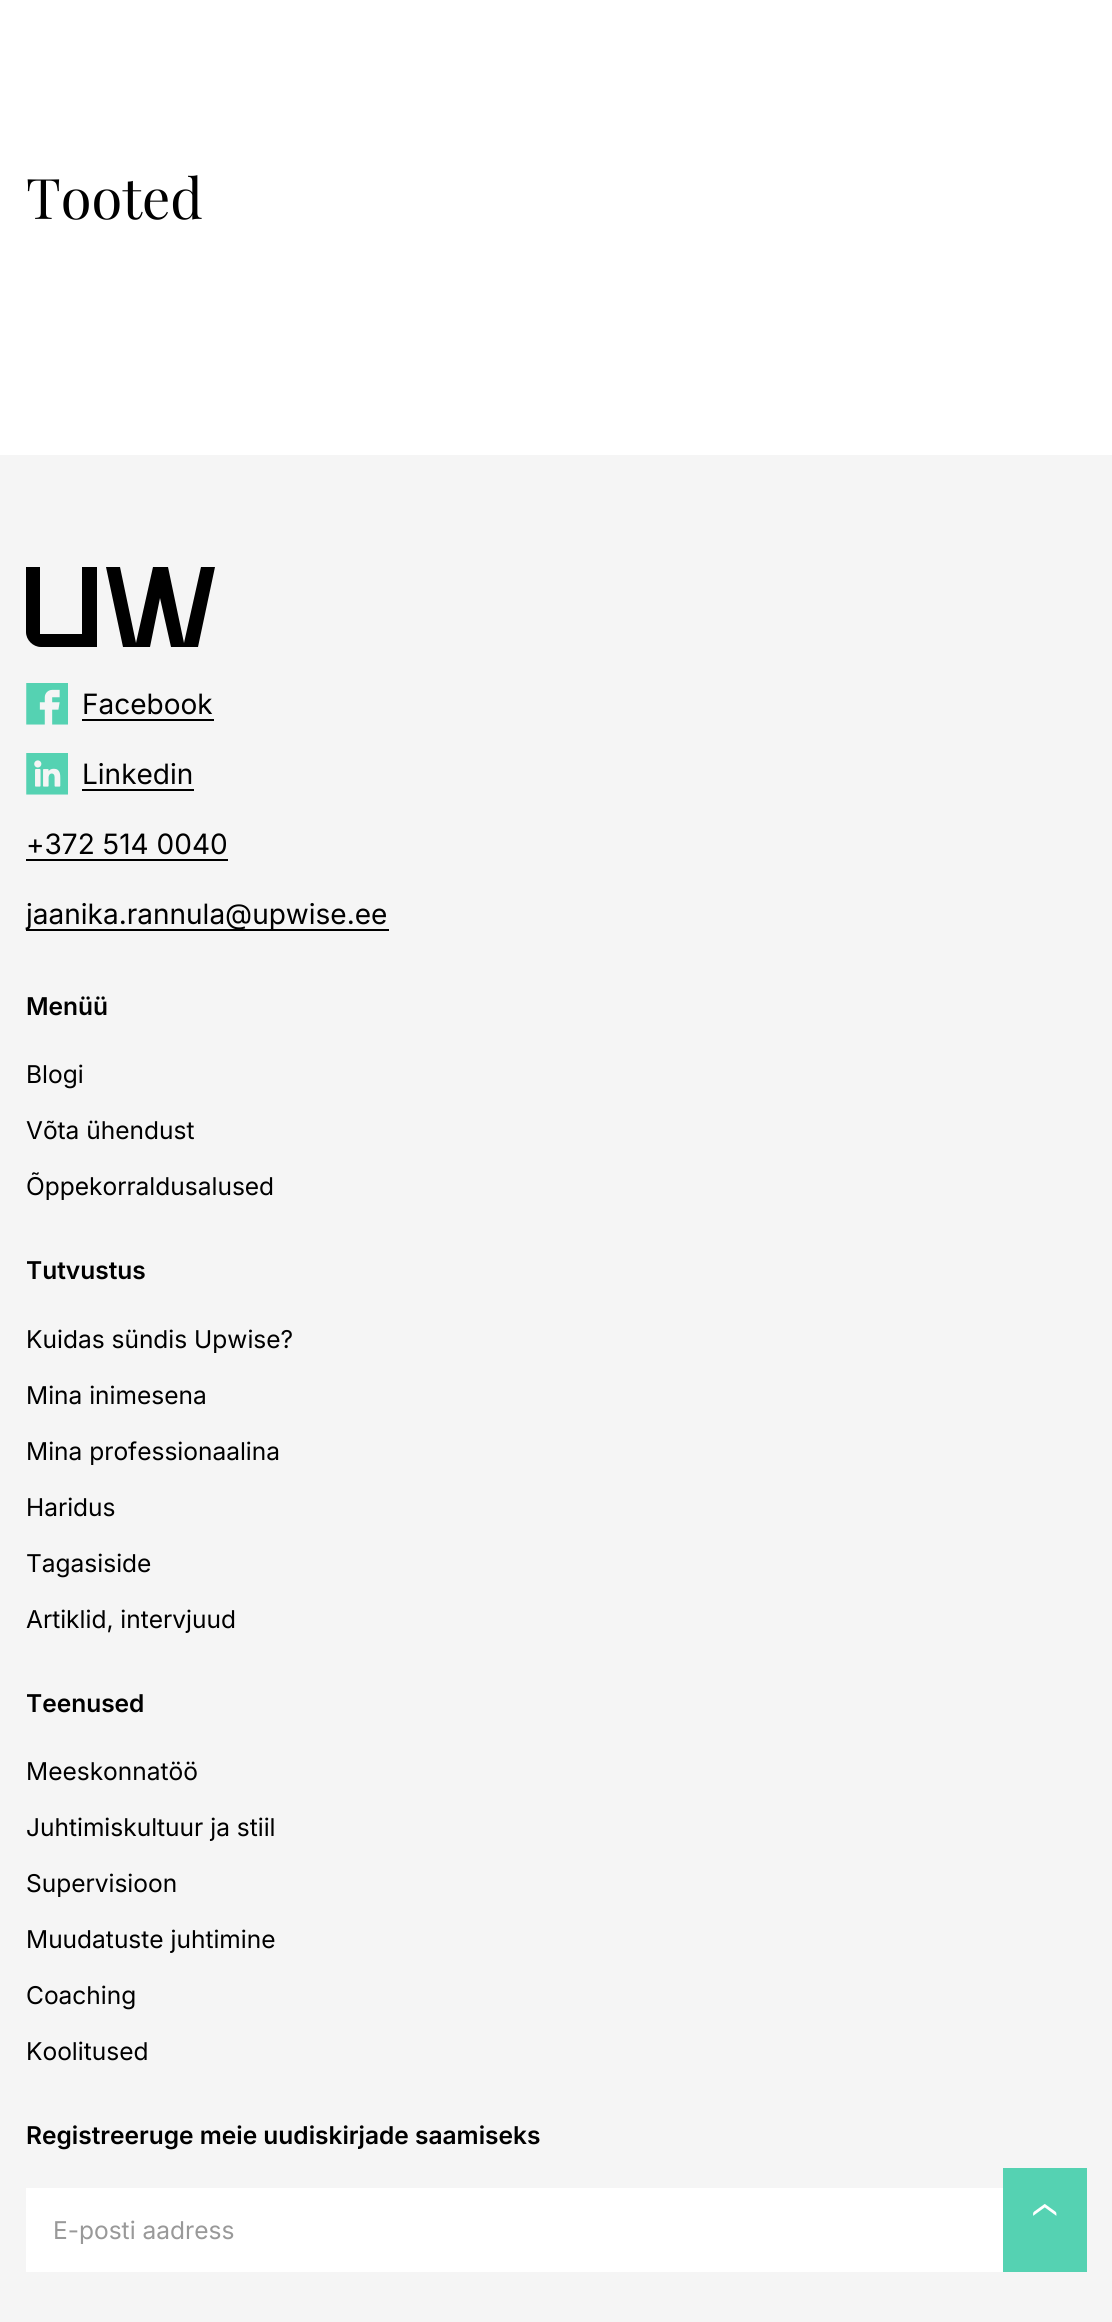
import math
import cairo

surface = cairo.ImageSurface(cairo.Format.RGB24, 1112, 2322)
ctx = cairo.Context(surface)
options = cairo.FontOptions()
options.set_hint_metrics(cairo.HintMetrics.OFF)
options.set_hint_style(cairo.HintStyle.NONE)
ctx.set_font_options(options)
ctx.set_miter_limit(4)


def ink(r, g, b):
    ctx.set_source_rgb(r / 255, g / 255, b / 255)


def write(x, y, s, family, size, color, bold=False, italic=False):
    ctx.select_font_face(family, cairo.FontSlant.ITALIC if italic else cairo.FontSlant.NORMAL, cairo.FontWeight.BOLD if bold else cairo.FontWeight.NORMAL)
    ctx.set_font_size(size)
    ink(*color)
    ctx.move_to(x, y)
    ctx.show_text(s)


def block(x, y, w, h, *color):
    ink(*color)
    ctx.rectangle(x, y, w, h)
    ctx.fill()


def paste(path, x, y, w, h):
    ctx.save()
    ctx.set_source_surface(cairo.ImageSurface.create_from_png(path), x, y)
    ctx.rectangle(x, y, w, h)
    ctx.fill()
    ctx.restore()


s1 = dict(family="Playfair Display", size=56, color=(0, 0, 0))
s2 = dict(family="Inter", size=28, color=(0, 0, 0))
s3 = dict(family="Inter SemiBold", size=24.5, color=(0, 0, 0))
s4 = dict(family="Inter", size=24.5, color=(0, 0, 0))
s5 = dict(family="Inter", size=24.5, color=(153, 153, 153))

ink(255, 255, 255)
ctx.paint()
write(26, 219, "Tooted", **s1)
block(0, 455, 1112, 1867, 245, 245, 245)
ink(0, 0, 0)
ctx.new_path()
ctx.move_to(82, 634)
ctx.line_to(40, 634)
ctx.line_to(40, 567)
ctx.line_to(26, 567)
ctx.line_to(26, 632)
ctx.curve_to(26, 640, 33, 647, 41, 647)
ctx.line_to(97, 647)
ctx.line_to(97, 567)
ctx.line_to(82, 567)
ctx.close_path()
ctx.fill()
ctx.new_path()
ctx.move_to(184, 643)
ctx.line_to(168, 567)
ctx.line_to(153, 567)
ctx.line_to(136, 643)
ctx.line_to(120, 567)
ctx.line_to(106, 567)
ctx.line_to(123, 647)
ctx.line_to(150, 647)
ctx.line_to(160, 598)
ctx.line_to(171, 647)
ctx.line_to(198, 647)
ctx.line_to(215, 567)
ctx.line_to(201, 567)
ctx.close_path()
ctx.fill()
paste("pic1.png", 26, 683, 42, 42)
write(82, 714, "Facebook", **s2)
block(82, 719, 132, 2, 0, 0, 0)
paste("pic2.png", 26, 753, 42, 42)
write(82, 784, "Linkedin", **s2)
block(82, 789, 112, 2, 0, 0, 0)
write(26, 854, "+372 514 0040", **s2)
block(26, 859, 202, 2, 0, 0, 0)
block(26, 929, 363, 2, 0, 0, 0)
write(26, 924, "jaanika.rannula@upwise.ee", **s2)
write(26, 1015, "Menüü", **s3)
write(26, 1083, "Blogi", **s4)
write(26, 1139, "Võta ühendust", **s4)
write(26, 1195, "Õppekorraldusalused", **s4)
write(26, 1279, "Tutvustus", **s3)
write(26, 1348, "Kuidas sündis Upwise?", **s4)
write(26, 1404, "Mina inimesena", **s4)
write(26, 1460, "Mina professionaalina", **s4)
write(26, 1516, "Haridus", **s4)
write(26, 1572, "Tagasiside", **s4)
write(26, 1628, "Artiklid, intervjuud", **s4)
write(26, 1712, "Teenused", **s3)
write(26, 1780, "Meeskonnatöö", **s4)
write(26, 1836, "Juhtimiskultuur ja stiil", **s4)
write(26, 1892, "Supervisioon", **s4)
write(26, 1948, "Muudatuste juhtimine", **s4)
write(26, 2004, "Coaching", **s4)
write(26, 2060, "Koolitused", **s4)
write(26, 2144, "Registreeruge meie uudiskirjade saamiseks", **s3)
block(26, 2188, 977, 84, 255, 255, 255)
write(53, 2239, "E-posti aadress", **s5)
block(1003, 2168, 84, 104, 85, 210, 178)
paste("pic3.png", 1033, 2204, 24, 12)
surface.write_to_png("screenshot.png")
